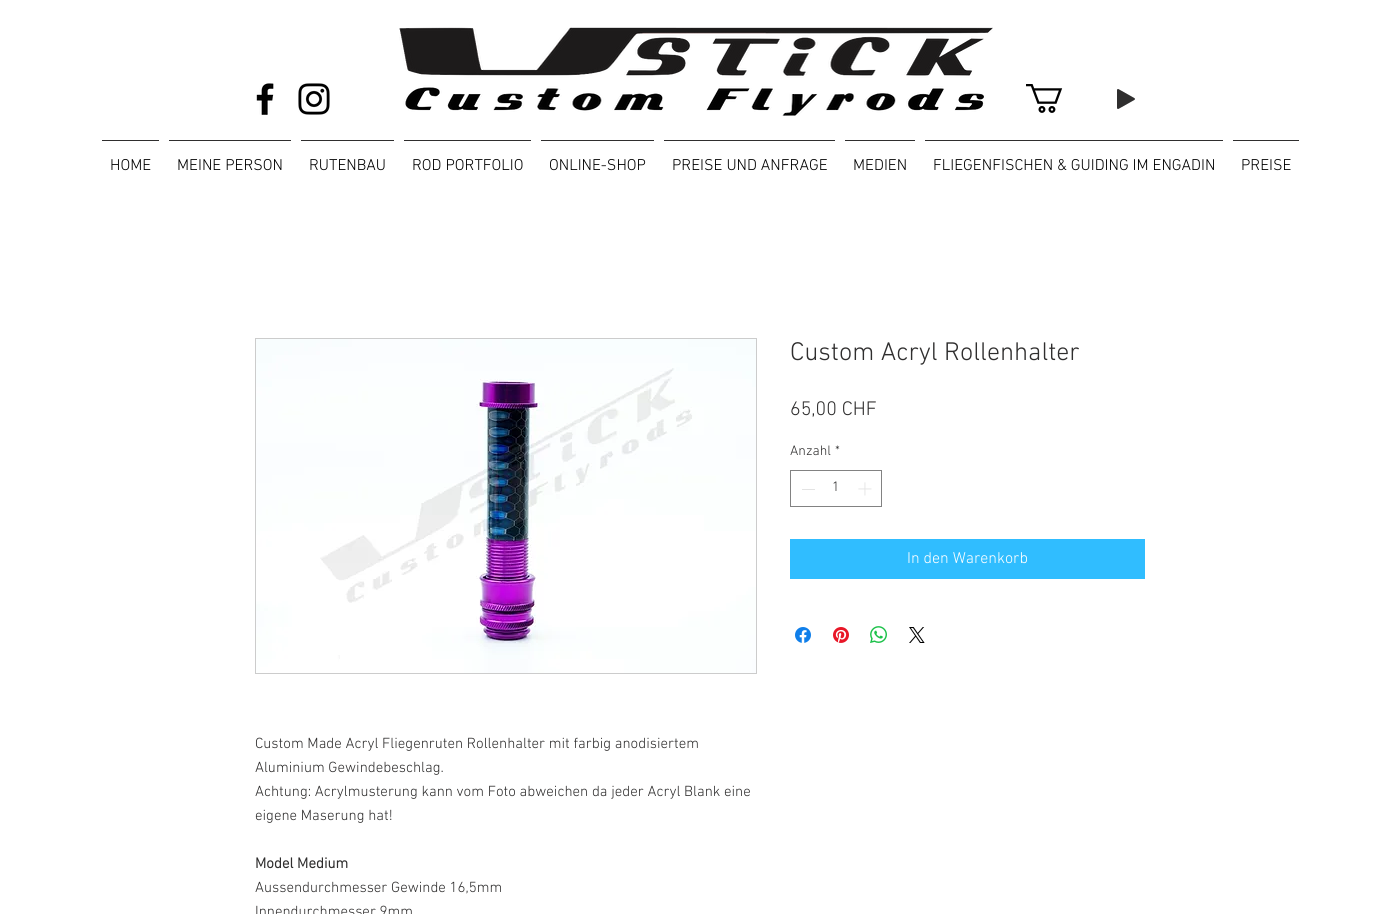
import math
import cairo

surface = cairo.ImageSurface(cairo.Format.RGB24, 1400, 914)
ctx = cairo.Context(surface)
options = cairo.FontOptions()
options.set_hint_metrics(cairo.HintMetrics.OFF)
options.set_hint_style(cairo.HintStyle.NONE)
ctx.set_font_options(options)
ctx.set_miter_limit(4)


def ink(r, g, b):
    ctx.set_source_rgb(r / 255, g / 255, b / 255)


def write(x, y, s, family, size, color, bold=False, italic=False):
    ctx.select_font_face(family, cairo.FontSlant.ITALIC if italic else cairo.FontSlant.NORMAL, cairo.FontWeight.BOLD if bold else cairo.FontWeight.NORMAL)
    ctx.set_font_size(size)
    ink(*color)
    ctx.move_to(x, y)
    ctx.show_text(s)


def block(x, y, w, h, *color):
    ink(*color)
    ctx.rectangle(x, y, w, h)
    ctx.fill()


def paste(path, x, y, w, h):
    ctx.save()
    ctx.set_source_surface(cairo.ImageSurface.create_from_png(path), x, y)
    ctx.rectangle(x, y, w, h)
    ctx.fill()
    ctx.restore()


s1 = dict(family="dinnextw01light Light", size=16, color=(0, 0, 0))
s2 = dict(family="dinnextw01light Light", size=26, color=(47, 46, 46))
s3 = dict(family="dinnextw01light Light", size=20, color=(47, 46, 46))
s4 = dict(family="dinnextw01light Light", size=14, color=(47, 46, 46))
s5 = dict(family="dinnextw01light Light", size=16, color=(255, 255, 255))
s6 = dict(family="dinnextw01light Light", size=15, color=(47, 46, 46))
s7 = dict(family="dinnextw01light", size=15, color=(47, 46, 46), bold=True)

ink(255, 255, 255)
ctx.paint()
paste("pic1.png", 256, 83, 18, 32)
paste("pic2.png", 298, 83, 32, 32)
paste("pic3.png", 399, 27, 594, 89)
paste("pic4.png", 1026, 84, 37, 29)
paste("pic5.png", 1117, 89, 18, 20)
block(102, 140, 57, 1, 47, 46, 46)
write(110, 170, "HOME", **s1)
block(169, 140, 122, 1, 47, 46, 46)
write(177, 170, "MEINE PERSON", **s1)
block(301, 140, 93, 1, 47, 46, 46)
write(309, 170, "RUTENBAU", **s1)
block(404, 140, 127, 1, 47, 46, 46)
write(412, 170, "ROD PORTFOLIO", **s1)
block(541, 140, 113, 1, 47, 46, 46)
write(549, 170, "ONLINE-SHOP", **s1)
block(664, 140, 171, 1, 47, 46, 46)
write(672, 170, "PREISE UND ANFRAGE", **s1)
block(845, 140, 70, 1, 47, 46, 46)
write(853, 170, "MEDIEN", **s1)
block(925, 140, 298, 1, 47, 46, 46)
write(933, 170, "FLIEGENFISCHEN & GUIDING IM ENGADIN", **s1)
block(1233, 140, 66, 1, 47, 46, 46)
write(1241, 170, "PREISE", **s1)
write(790, 360, "Custom Acryl Rollenhalter", **s2)
write(790, 415, "65,00 CHF", **s3)
write(790, 455, "Anzahl", **s4)
write(835, 455, "*", **s4)
ctx.rectangle(790.5, 470.5, 91, 36)
ink(130, 130, 130)
ctx.set_line_width(1)
ctx.stroke()
block(802, 489, 13, 1, 227, 227, 227)
write(832, 491, "1", **s4)
paste("pic6.png", 858, 482, 14, 14)
block(790, 539, 355, 40, 48, 189, 255)
write(907, 563, "In den Warenkorb", **s5)
paste("pic7.png", 795, 627, 16, 16)
paste("pic8.png", 833, 627, 16, 16)
paste("pic9.png", 870, 626, 17, 17)
paste("pic10.png", 909, 627, 16, 16)
ctx.rectangle(255.5, 338.5, 501, 335)
ink(204, 204, 204)
ctx.stroke()
paste("pic11.png", 256, 339, 500, 334)
write(255, 748, "Custom Made Acryl Fliegenruten Rollenhalter mit farbig anodisiertem", **s6)
write(255, 772, "Aluminium Gewindebeschlag.", **s6)
write(255, 796, "Achtung: Acrylmusterung kann vom Foto abweichen da jeder Acryl Blank eine", **s6)
write(255, 820, "eigene Maserung hat!", **s6)
write(255, 868, "Model Medium", **s7)
write(255, 892, "Aussendurchmesser Gewinde 16,5mm", **s6)
write(255, 916, "Innendurchmesser 9mm", **s6)
surface.write_to_png("screenshot.png")
